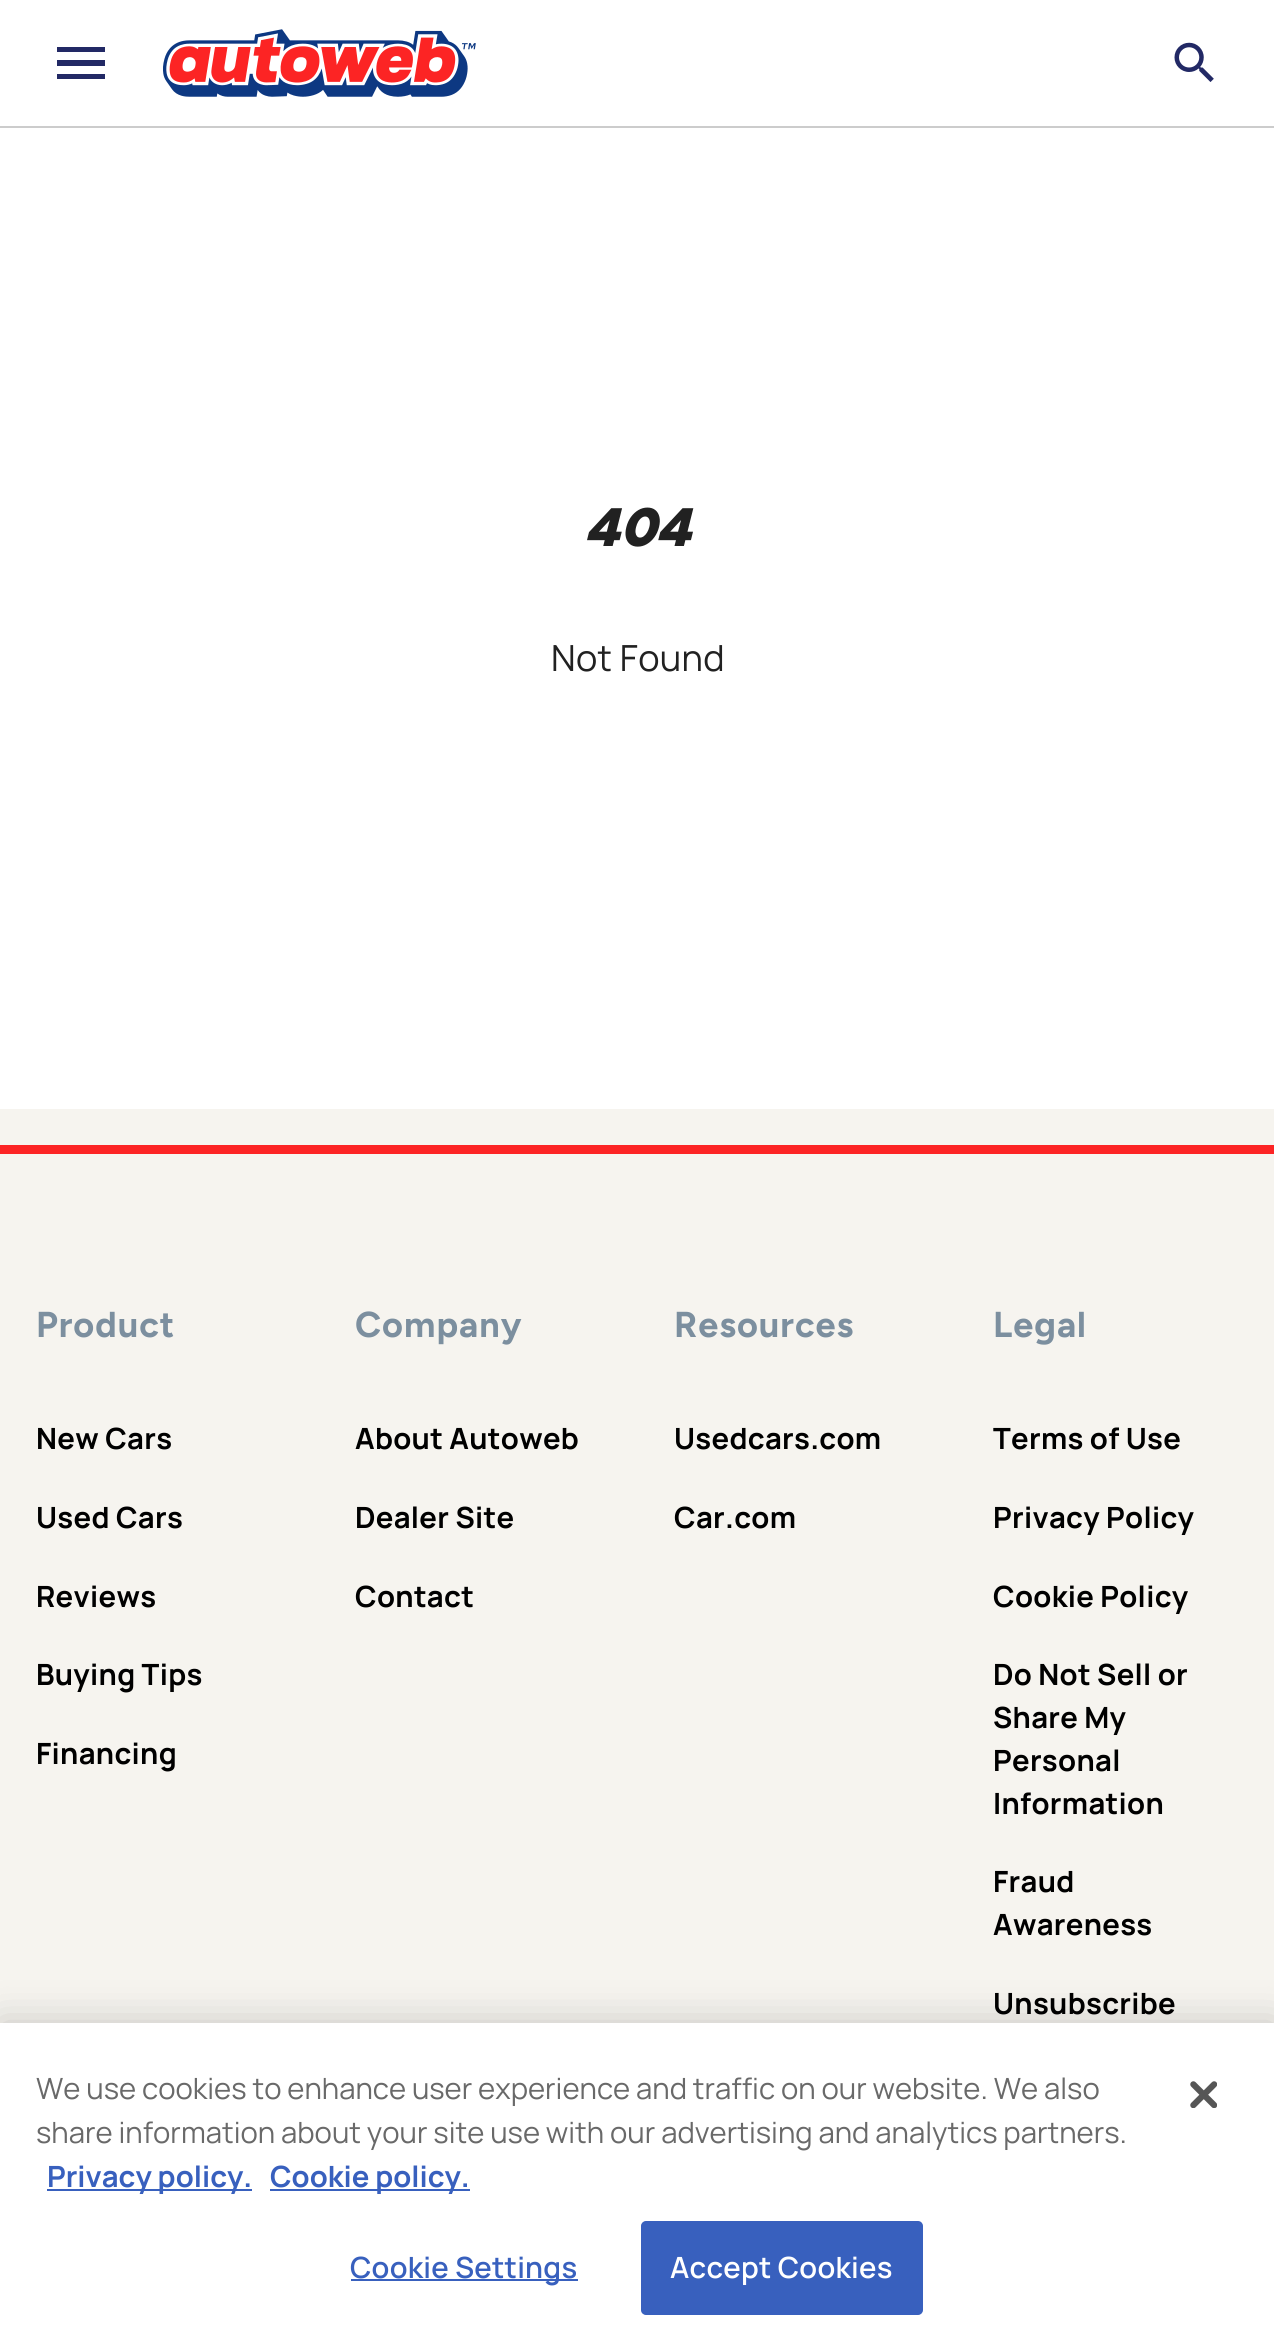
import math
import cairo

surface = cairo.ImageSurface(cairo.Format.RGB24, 1274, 2351)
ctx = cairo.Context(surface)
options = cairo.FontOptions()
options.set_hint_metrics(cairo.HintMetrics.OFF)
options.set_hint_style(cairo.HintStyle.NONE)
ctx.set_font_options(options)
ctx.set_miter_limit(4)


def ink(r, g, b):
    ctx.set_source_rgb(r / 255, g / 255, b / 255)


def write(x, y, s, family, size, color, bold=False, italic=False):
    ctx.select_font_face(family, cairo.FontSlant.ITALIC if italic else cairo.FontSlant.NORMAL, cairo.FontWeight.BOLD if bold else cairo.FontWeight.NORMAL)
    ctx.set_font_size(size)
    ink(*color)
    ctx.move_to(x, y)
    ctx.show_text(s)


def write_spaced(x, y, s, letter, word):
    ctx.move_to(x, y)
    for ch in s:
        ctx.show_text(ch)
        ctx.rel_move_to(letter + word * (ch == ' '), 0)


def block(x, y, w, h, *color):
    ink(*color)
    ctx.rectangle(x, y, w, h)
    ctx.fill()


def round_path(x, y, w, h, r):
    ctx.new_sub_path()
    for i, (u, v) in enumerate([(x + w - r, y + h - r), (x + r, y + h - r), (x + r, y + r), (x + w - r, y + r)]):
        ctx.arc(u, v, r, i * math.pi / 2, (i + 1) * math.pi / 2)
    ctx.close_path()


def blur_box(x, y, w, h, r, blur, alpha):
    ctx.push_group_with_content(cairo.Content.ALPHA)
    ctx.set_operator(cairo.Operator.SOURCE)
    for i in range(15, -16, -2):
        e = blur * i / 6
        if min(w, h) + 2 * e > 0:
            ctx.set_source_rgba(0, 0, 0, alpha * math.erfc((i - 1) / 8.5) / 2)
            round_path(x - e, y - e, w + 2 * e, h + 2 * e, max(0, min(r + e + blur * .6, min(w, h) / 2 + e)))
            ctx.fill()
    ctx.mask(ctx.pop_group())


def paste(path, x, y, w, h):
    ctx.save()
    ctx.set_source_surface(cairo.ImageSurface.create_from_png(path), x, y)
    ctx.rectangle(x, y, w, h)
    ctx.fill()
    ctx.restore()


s1 = dict(family="Manrope", size=29.25, color=(105, 105, 105))
s2 = dict(family="Manrope", size=29.25, color=(56, 96, 190), bold=True)

ink(255, 255, 255)
ctx.paint()
ink(34, 41, 101)
ctx.new_path()
ctx.move_to(57, 79)
ctx.line_to(105, 79)
ctx.line_to(105, 74)
ctx.line_to(57, 74)
ctx.close_path()
ctx.move_to(57, 66)
ctx.line_to(105, 66)
ctx.line_to(105, 60)
ctx.line_to(57, 60)
ctx.close_path()
ctx.move_to(57, 47)
ctx.line_to(57, 52)
ctx.line_to(105, 52)
ctx.line_to(105, 47)
ctx.close_path()
ctx.fill()
paste("pic1.png", 163, 29, 313, 68)
paste("pic2.png", 1174, 42, 40, 40)
block(0, 126, 1274, 2, 204, 204, 204)
ctx.select_font_face("Figtree Black", cairo.FontSlant.ITALIC)
ctx.set_font_size(54)
ink(33, 33, 33)
write_spaced(585, 546, "404", 0.5, 0)
ctx.select_font_face("Manrope")
ctx.set_font_size(36)
write_spaced(551, 671, "Not Found", 0.3, 0)
block(0, 1109, 1274, 914, 246, 244, 239)
block(0, 1145, 1274, 9, 252, 36, 36)
ctx.select_font_face("Figtree", cairo.FontSlant.NORMAL, cairo.FontWeight.BOLD)
ink(124, 143, 159)
write_spaced(36, 1337, "Product", 1, 0)
ctx.select_font_face("Manrope", cairo.FontSlant.NORMAL, cairo.FontWeight.BOLD)
ctx.set_font_size(29.25)
ink(0, 0, 0)
write_spaced(36, 1449, "New Cars", 0.3, 0)
write_spaced(36, 1528, "Used Cars", 0.3, 0)
write_spaced(36, 1607, "Reviews", 0.3, 0)
write_spaced(36, 1685, "Buying Tips", 0.3, 0)
write_spaced(36, 1764, "Financing", 0.3, 0)
ctx.select_font_face("Figtree", cairo.FontSlant.NORMAL, cairo.FontWeight.BOLD)
ctx.set_font_size(36)
ink(124, 143, 159)
write_spaced(355, 1337, "Company", 1, 0)
ctx.select_font_face("Manrope", cairo.FontSlant.NORMAL, cairo.FontWeight.BOLD)
ctx.set_font_size(29.25)
ink(0, 0, 0)
write_spaced(355, 1449, "About Autoweb", 0.3, 0)
write_spaced(355, 1528, "Dealer Site", 0.3, 0)
write_spaced(355, 1607, "Contact", 0.3, 0)
ctx.select_font_face("Figtree", cairo.FontSlant.NORMAL, cairo.FontWeight.BOLD)
ctx.set_font_size(36)
ink(124, 143, 159)
write_spaced(674, 1337, "Resources", 1, 0)
ctx.select_font_face("Manrope", cairo.FontSlant.NORMAL, cairo.FontWeight.BOLD)
ctx.set_font_size(29.25)
ink(0, 0, 0)
write_spaced(674, 1449, "Usedcars.com", 0.3, 0)
write_spaced(674, 1528, "Car.com", 0.3, 0)
ctx.select_font_face("Figtree", cairo.FontSlant.NORMAL, cairo.FontWeight.BOLD)
ctx.set_font_size(36)
ink(124, 143, 159)
write_spaced(993, 1337, "Legal", 1, 0)
ctx.select_font_face("Manrope", cairo.FontSlant.NORMAL, cairo.FontWeight.BOLD)
ctx.set_font_size(29.25)
ink(0, 0, 0)
write_spaced(993, 1449, "Terms of Use", 0.3, 0)
write_spaced(993, 1528, "Privacy Policy", 0.3, 0)
write_spaced(993, 1607, "Cookie Policy", 0.3, 0)
write_spaced(993, 1685, "Do Not Sell or", 0.3, 0)
write_spaced(993, 1728, "Share My", 0.3, 0)
write_spaced(993, 1771, "Personal", 0.3, 0)
write_spaced(993, 1814, "Information", 0.3, 0)
write_spaced(993, 1892, "Fraud", 0.3, 0)
write_spaced(993, 1935, "Awareness", 0.3, 0)
write_spaced(993, 2014, "Unsubscribe", 0.3, 0)
ink(0, 0, 0)
blur_box(0, 2023, 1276, 328, 0, 20, 0.2)
block(0, 2023, 1274, 328, 255, 255, 255)
write(36, 2099, "We use cookies to enhance user experience and traffic on our website. We also", **s1)
write(36, 2143, "share information about your site use with our advertising and analytics partners.", **s1)
block(47, 2189, 205, 2, 56, 96, 190)
write(47, 2187, "Privacy policy.", **s2)
block(270, 2189, 200, 2, 56, 96, 190)
write(270, 2187, "Cookie policy.", **s2)
block(351, 2279, 227, 2, 56, 96, 190)
ctx.select_font_face("Manrope SemiBold")
write_spaced(350, 2278, "Cookie Settings", 0.25, 0)
round_path(642, 2222, 280, 92, 4)
ctx.fill_preserve()
ctx.stroke()
ink(255, 255, 255)
write_spaced(670, 2278, "Accept Cookies", 0.25, 0)
paste("pic3.png", 1190, 2081, 27, 27)
surface.write_to_png("screenshot.png")
